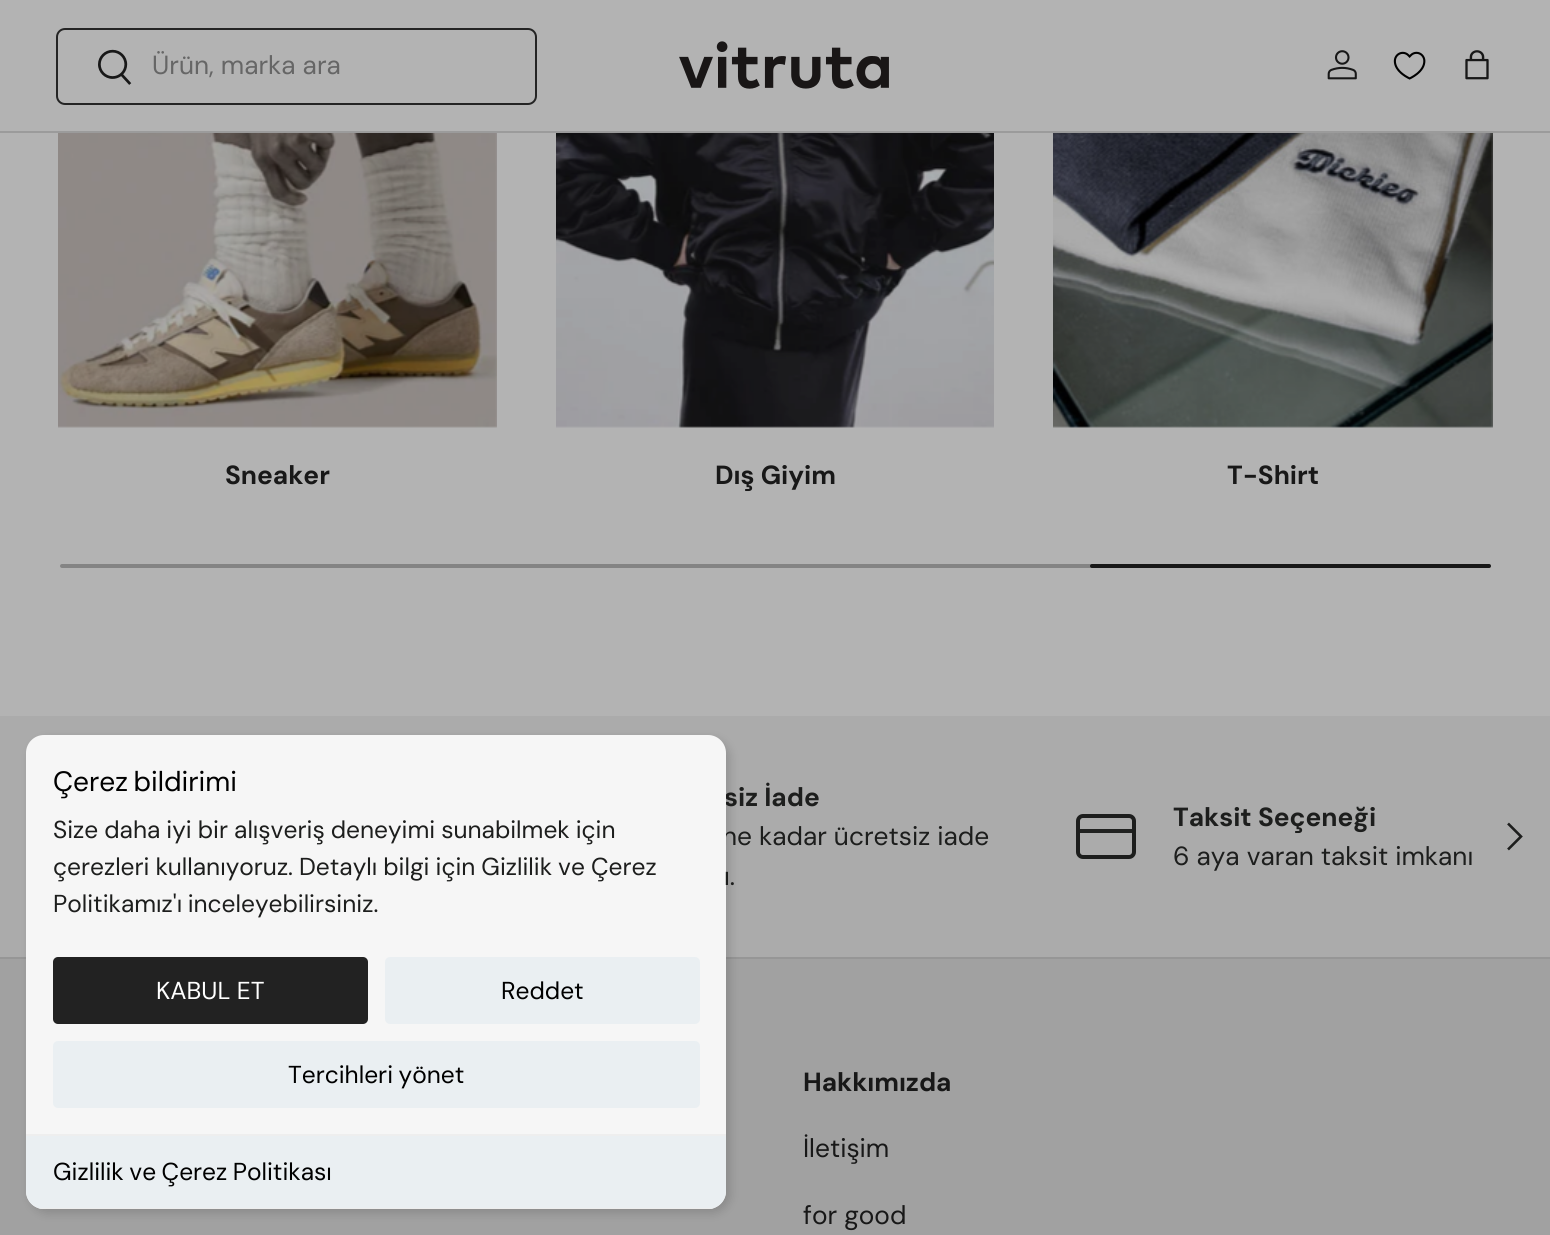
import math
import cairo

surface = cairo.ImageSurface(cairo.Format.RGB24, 1550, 1235)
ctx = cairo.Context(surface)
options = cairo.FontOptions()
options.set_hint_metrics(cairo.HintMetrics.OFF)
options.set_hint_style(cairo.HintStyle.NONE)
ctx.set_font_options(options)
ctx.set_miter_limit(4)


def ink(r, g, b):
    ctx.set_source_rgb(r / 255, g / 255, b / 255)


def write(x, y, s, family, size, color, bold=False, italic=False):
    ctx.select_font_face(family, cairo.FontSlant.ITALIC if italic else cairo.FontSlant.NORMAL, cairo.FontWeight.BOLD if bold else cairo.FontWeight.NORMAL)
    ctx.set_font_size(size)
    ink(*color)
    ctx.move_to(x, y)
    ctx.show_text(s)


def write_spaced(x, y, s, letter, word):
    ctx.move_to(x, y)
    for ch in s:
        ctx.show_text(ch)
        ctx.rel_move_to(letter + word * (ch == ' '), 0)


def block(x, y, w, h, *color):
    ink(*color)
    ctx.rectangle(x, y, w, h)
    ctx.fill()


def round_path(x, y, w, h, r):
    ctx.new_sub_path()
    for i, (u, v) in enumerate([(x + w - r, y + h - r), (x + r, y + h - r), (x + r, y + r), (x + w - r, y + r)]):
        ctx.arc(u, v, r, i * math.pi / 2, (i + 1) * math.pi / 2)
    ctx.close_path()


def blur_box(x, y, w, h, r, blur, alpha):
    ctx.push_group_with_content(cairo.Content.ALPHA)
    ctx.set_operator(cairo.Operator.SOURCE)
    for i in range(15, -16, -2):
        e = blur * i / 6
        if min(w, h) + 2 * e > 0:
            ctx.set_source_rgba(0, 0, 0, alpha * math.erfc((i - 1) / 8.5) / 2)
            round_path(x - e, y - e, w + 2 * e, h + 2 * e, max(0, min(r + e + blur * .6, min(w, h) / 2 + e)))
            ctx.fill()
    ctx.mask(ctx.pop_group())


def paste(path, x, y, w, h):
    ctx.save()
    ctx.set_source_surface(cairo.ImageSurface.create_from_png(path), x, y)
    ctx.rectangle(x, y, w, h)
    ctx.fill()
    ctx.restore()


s1 = dict(family="DM Sans", size=26.25, color=(102, 102, 102))
s2 = dict(family="DM Sans", size=26.25, color=(24, 24, 24), bold=True)
s3 = dict(family="DM Sans", size=26.25, color=(29, 30, 29), bold=True)
s4 = dict(family="DM Sans", size=26.25, color=(29, 30, 29))
s5 = dict(family="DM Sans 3", size=24.5, color=(255, 255, 255))
s6 = dict(family="DM Sans 3", size=24.5, color=(0, 0, 0))
s7 = dict(family="DM Sans", size=26.25, color=(24, 24, 24))

ink(179, 179, 179)
ctx.paint()
block(0, 131, 1550, 2, 155, 155, 155)
round_path(57, 29, 479, 75, 8)
ink(36, 36, 36)
ctx.stroke()
paste("pic1.png", 98, 49, 34, 36)
write(152, 74, "Ürün, marka ara", **s1)
paste("pic2.png", 679, 41, 210, 48)
paste("pic3.png", 1327, 50, 30, 30)
paste("pic4.png", 1393, 51, 33, 29)
paste("pic5.png", 1465, 50, 24, 30)
paste("pic6.png", 58, 133, 439, 295)
write(225, 484, "Sneaker", **s2)
paste("pic7.png", 556, 133, 438, 295)
write(715, 484, "Dış Giyim", **s2)
paste("pic8.png", 1053, 133, 440, 295)
write(1227, 484, "T-Shirt", **s2)
ink(132, 132, 132)
round_path(60, 564, 1431, 4, 2)
ctx.fill()
ink(24, 24, 24)
round_path(1090, 564, 401, 4, 2)
ctx.fill()
block(0, 716, 1550, 241, 171, 171, 171)
block(0, 957, 1550, 2, 150, 150, 150)
block(0, 959, 1550, 276, 161, 161, 161)
ink(0, 0, 0)
blur_box(30, 739, 700, 474, 18, 5, 0.15)
write(724, 806, "siz İade", **s3)
write(722, 845, "ne kadar ücretsiz iade", **s4)
ink(246, 246, 246)
round_path(26, 735, 700, 474, 18)
ctx.fill()
ctx.select_font_face("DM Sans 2")
ctx.set_font_size(28)
ink(0, 0, 0)
write_spaced(53, 791, "Çerez bildirimi", 0, -2)
ctx.select_font_face("DM Sans 3")
ctx.set_font_size(24.5)
ink(29, 30, 29)
write_spaced(53, 838, "Size daha iyi bir alışveriş deneyimi sunabilmek için", 0, -0.5)
write_spaced(53, 875, "çerezleri kullanıyoruz. Detaylı bilgi için Gizlilik ve Çerez", 0, -0.5)
write_spaced(53, 912, "Politikamız'ı inceleyebilirsiniz.", 0, -1)
ink(34, 34, 34)
round_path(53, 957, 315, 67, 5)
ctx.fill()
write(156, 999, "KABUL ET", **s5)
ink(234, 239, 242)
round_path(385, 957, 315, 67, 5)
ctx.fill()
write(501, 999, "Reddet", **s6)
ink(234, 239, 242)
round_path(53, 1041, 647, 67, 5)
ctx.fill()
ink(0, 0, 0)
write_spaced(288, 1083, "Tercihleri yönet", 0, -1)
ink(234, 239, 242)
ctx.new_path()
ctx.move_to(26, 1134)
ctx.line_to(726, 1134)
ctx.line_to(726, 1191)
ctx.curve_to(726, 1201, 718, 1209, 708, 1209)
ctx.line_to(44, 1209)
ctx.curve_to(34, 1209, 26, 1201, 26, 1191)
ctx.close_path()
ctx.fill()
block(26, 1134, 700, 2, 238, 238, 238)
ctx.save()
round_path(26, 735, 700, 474, 18)
ctx.clip()
block(38, 1208, 676, 1, 238, 238, 238)
ctx.restore()
ink(0, 0, 0)
write_spaced(53, 1180, "Gizlilik ve Çerez Politikası", 0, -1)
write(724, 885, "ı.", **s4)
round_path(1078, 816, 56, 41, 5)
ctx.set_line_width(4)
ctx.stroke()
ctx.set_source_rgba(0.114, 0.118, 0.114, 0.97)
ctx.rectangle(1078, 829, 56, 4)
ctx.fill()
write(1173, 826, "Taksit Seçeneği", **s3)
write(1173, 865, "6 aya varan taksit imkanı", **s4)
ctx.new_path()
ctx.move_to(1508, 823.5)
ctx.line_to(1521, 836.5)
ctx.line_to(1508, 849.5)
ctx.set_line_width(2.6)
ctx.stroke()
write(803, 1091, "Hakkımızda", **s2)
write(803, 1157, "İletişim", **s7)
write(803, 1224, "for good", **s7)
surface.write_to_png("screenshot.png")
